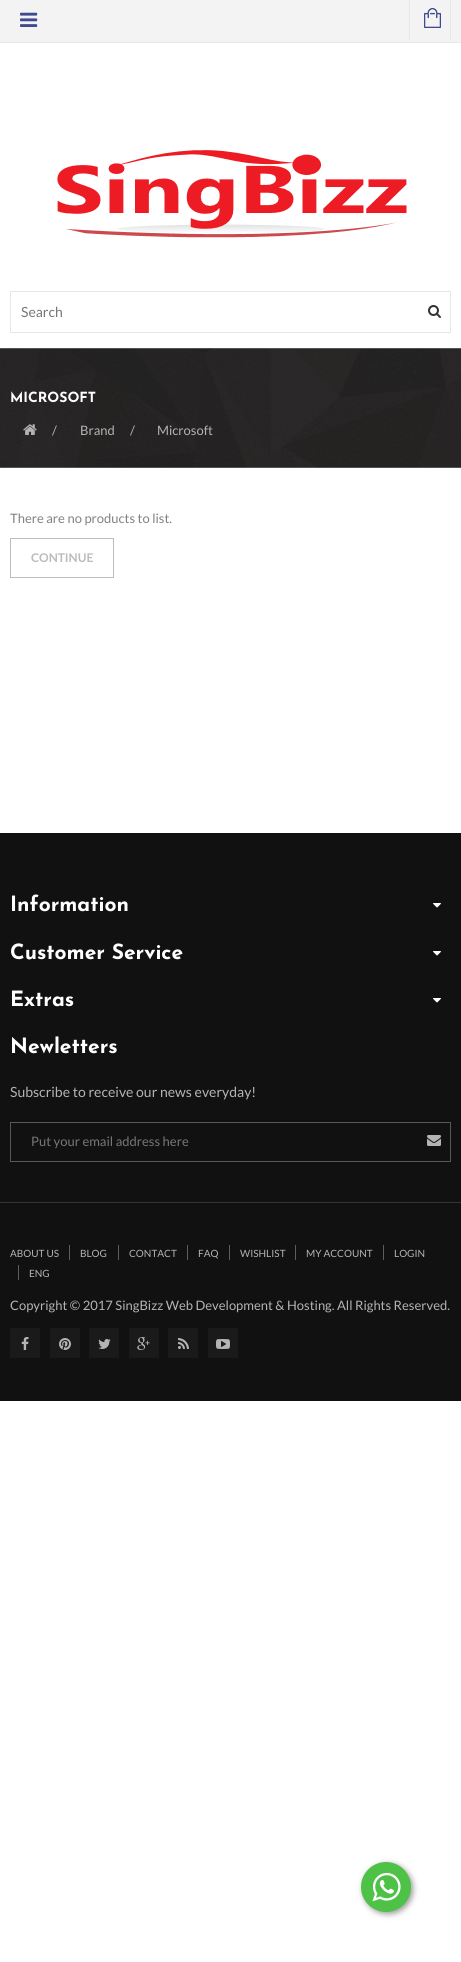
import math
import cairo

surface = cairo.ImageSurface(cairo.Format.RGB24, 461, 1962)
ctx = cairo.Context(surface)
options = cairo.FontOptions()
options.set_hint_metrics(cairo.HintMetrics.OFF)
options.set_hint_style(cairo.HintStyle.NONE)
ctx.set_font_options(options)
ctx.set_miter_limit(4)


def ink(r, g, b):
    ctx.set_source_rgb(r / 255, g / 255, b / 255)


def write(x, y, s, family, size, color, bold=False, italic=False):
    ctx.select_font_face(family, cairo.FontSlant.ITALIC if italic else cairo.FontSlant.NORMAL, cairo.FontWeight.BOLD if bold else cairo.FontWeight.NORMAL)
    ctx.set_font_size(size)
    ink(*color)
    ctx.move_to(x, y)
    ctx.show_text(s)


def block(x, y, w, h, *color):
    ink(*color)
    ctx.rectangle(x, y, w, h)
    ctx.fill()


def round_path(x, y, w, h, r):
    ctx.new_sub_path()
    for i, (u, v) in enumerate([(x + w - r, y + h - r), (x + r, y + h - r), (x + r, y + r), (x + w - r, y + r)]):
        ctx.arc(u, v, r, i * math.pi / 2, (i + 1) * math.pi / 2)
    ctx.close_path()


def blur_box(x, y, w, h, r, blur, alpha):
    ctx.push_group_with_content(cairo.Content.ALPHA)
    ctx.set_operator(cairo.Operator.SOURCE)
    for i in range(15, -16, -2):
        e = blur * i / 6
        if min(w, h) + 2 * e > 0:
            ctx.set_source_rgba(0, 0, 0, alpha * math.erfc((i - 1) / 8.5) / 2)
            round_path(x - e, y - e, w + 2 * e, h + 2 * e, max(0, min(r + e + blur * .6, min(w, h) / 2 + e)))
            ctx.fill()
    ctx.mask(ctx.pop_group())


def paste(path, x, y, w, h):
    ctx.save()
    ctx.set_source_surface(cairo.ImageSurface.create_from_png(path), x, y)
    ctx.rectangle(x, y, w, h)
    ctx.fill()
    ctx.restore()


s1 = dict(family="Lato", size=14, color=(119, 119, 119))
s2 = dict(family="Josefin Sans", size=14, color=(255, 255, 255), bold=True)
s3 = dict(family="Lato", size=13, color=(180, 180, 180))
s4 = dict(family="Lato", size=13, color=(129, 129, 129))
s5 = dict(family="Lato", size=12, color=(188, 188, 188), bold=True)
s6 = dict(family="Josefin Sans", size=21, color=(255, 255, 255), bold=True)
s7 = dict(family="Lato", size=14, color=(180, 180, 180))
s8 = dict(family="Lato", size=13, color=(119, 119, 119))
s9 = dict(family="Lato", size=10, color=(180, 180, 180))

ink(255, 255, 255)
ctx.paint()
block(0, 0, 461, 42, 243, 243, 243)
block(0, 42, 461, 1, 232, 232, 232)
paste("pic1.png", 20, 12, 18, 15)
block(450, 0, 1, 40, 232, 232, 232)
block(409, 0, 1, 40, 232, 232, 232)
block(424, 8, 17, 20, 64, 75, 143)
paste("pic2.png", 420, 3, 25, 30)
paste("pic3.png", 57, 150, 350, 88)
ctx.rectangle(10.5, 291.5, 440, 41)
ink(232, 232, 232)
ctx.set_line_width(1)
ctx.stroke()
write(21, 317, "Search", **s1)
paste("pic4.png", 428, 305, 13, 13)
paste("pic5.png", 0, 348, 461, 120)
write(10, 402, "MICROSOFT", **s2)
paste("pic6.png", 23, 424, 14, 11)
write(52, 435, "/", **s3)
write(80, 435, "Brand", **s3)
write(130, 435, "/", **s3)
write(157, 435, "Microsoft", **s3)
write(10, 523, "There are no products to list.", **s4)
ctx.rectangle(10.5, 538.5, 103, 39)
ink(188, 188, 188)
ctx.stroke()
write(31, 562, "CONTINUE", **s5)
block(0, 833, 461, 568, 17, 17, 17)
block(0, 1202, 461, 1, 53, 53, 53)
write(10, 911, "Information", **s6)
paste("pic7.png", 433, 903, 8, 5)
write(10, 959, "Customer Service", **s6)
paste("pic7.png", 433, 951, 8, 5)
write(10, 1006, "Extras", **s6)
paste("pic7.png", 433, 998, 8, 5)
write(10, 1053, "Newletters", **s6)
write(10, 1097, "Subscribe to receive our news everyday!", **s7)
ctx.rectangle(10.5, 1122.5, 440, 39)
ink(89, 89, 89)
ctx.stroke()
write(31, 1146, "Put your email address here", **s8)
paste("pic8.png", 427, 1135, 14, 11)
write(10, 1257, "ABOUT US", **s9)
write(80, 1257, "BLOG", **s9)
block(69, 1245, 1, 15, 93, 93, 93)
write(129, 1257, "CONTACT", **s9)
block(118, 1245, 1, 15, 93, 93, 93)
write(198, 1257, "FAQ", **s9)
block(187, 1245, 1, 15, 93, 93, 93)
write(240, 1257, "WISHLIST", **s9)
block(229, 1245, 1, 15, 93, 93, 93)
write(306, 1257, "MY ACCOUNT", **s9)
block(295, 1245, 1, 15, 93, 93, 93)
write(394, 1257, "LOGIN", **s9)
block(383, 1245, 1, 15, 93, 93, 93)
write(29, 1277, "ENG", **s9)
block(18, 1265, 1, 15, 93, 93, 93)
write(10, 1310, "Copyright © 2017 SingBizz Web Development & Hosting. All Rights Reserved.", **s3)
block(10, 1328, 30, 30, 26, 26, 26)
paste("pic9.png", 21, 1337, 8, 13)
block(50, 1328, 30, 30, 26, 26, 26)
paste("pic10.png", 59, 1338, 12, 12)
block(89, 1328, 30, 30, 26, 26, 26)
paste("pic11.png", 98, 1339, 13, 10)
block(129, 1328, 30, 30, 26, 26, 26)
paste("pic12.png", 137, 1337, 13, 13)
block(168, 1328, 30, 30, 26, 26, 26)
paste("pic13.png", 178, 1338, 11, 11)
block(208, 1328, 30, 30, 26, 26, 26)
paste("pic14.png", 216, 1339, 14, 10)
ink(0, 0, 0)
blur_box(363, 1864, 50, 50, 25, 3, 0.4)
ink(77, 194, 71)
ctx.arc(386, 1887, 25, 0, 2 * math.pi)
ctx.fill()
paste("pic15.png", 372, 1872, 29, 30)
surface.write_to_png("screenshot.png")
